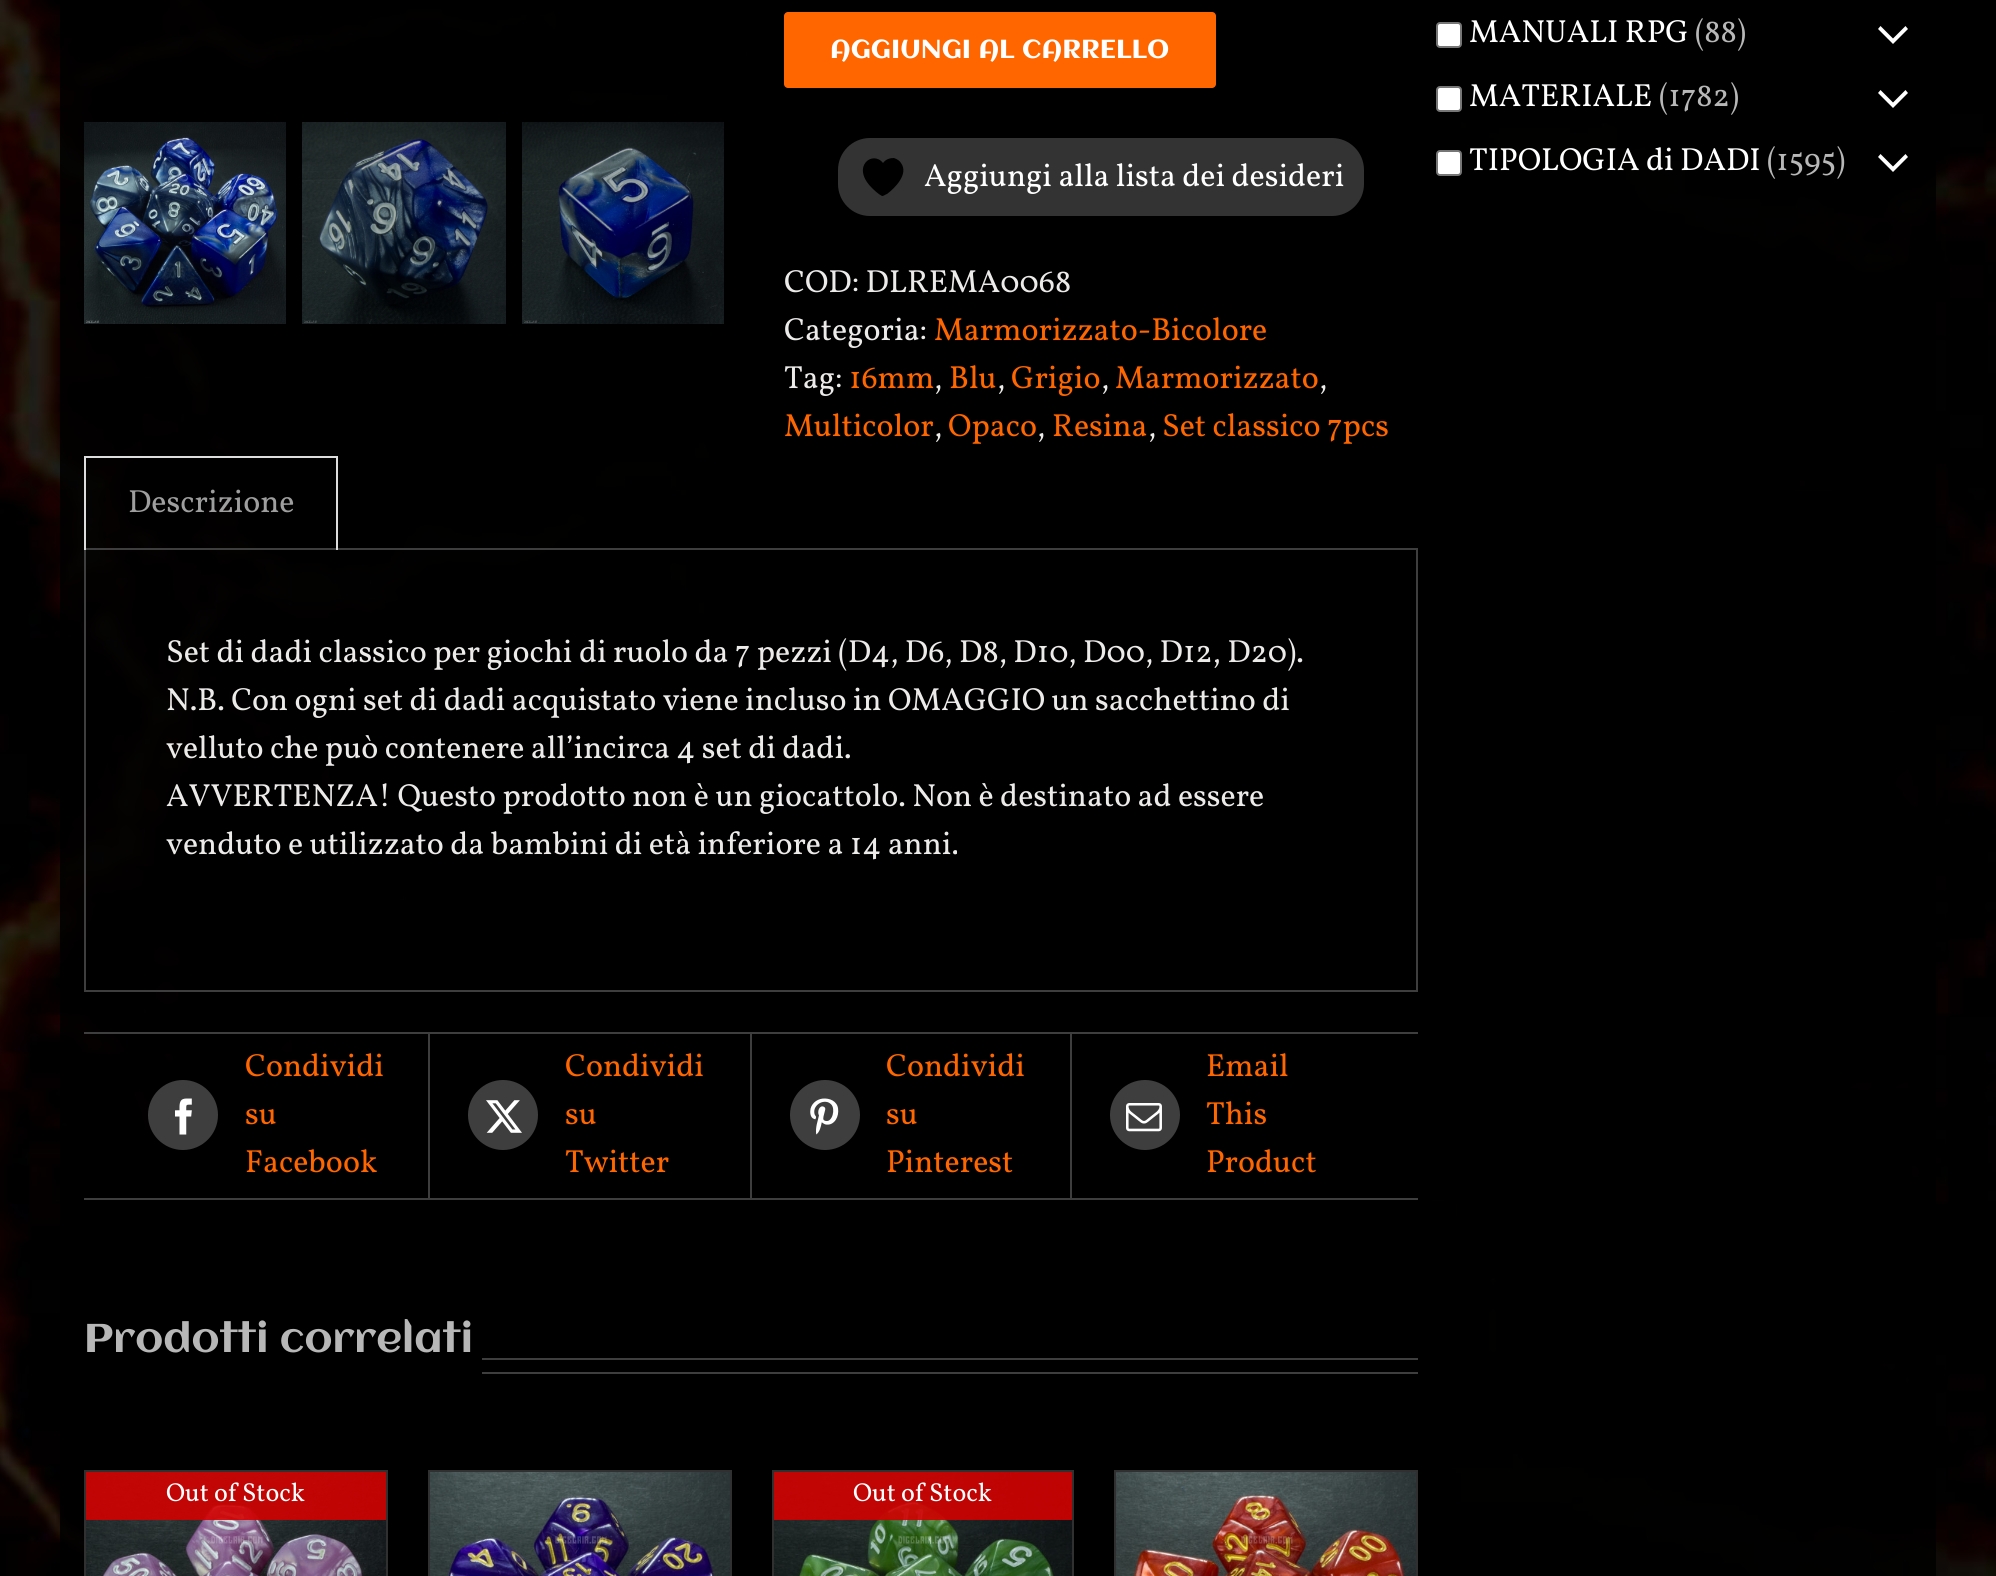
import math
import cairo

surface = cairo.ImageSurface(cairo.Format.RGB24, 1996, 1576)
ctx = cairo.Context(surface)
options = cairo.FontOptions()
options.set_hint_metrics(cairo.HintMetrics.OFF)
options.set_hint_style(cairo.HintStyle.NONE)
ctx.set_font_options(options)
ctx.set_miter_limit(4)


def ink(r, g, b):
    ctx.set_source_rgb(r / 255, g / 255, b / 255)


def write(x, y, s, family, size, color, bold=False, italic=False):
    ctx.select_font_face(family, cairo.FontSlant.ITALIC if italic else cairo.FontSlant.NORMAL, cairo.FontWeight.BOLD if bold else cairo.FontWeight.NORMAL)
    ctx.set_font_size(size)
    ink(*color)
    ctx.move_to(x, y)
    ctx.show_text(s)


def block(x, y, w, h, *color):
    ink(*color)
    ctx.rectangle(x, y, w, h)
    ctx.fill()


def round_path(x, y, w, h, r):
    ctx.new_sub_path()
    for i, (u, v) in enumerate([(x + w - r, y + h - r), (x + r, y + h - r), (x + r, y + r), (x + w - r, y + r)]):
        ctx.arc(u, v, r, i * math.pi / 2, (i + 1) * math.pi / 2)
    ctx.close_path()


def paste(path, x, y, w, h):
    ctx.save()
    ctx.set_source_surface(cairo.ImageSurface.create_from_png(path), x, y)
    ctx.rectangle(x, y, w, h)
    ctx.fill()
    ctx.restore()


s1 = dict(family="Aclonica", size=26, color=(255, 255, 255))
s2 = dict(family="Vollkorn", size=32, color=(255, 255, 255))
s3 = dict(family="Vollkorn", size=32, color=(237, 234, 234))
s4 = dict(family="Vollkorn", size=32, color=(255, 102, 0))
s5 = dict(family="Vollkorn", size=32, color=(158, 158, 158))
s6 = dict(family="Aclonica", size=40, color=(183, 183, 183))
s7 = dict(family="Vollkorn", size=26, color=(255, 255, 255))
s8 = dict(family="Vollkorn", size=32, color=(183, 183, 183))

ink(255, 255, 255)
ctx.paint()
paste("pic1.png", 0, 0, 1996, 1576)
paste("pic2.png", 84, 122, 202, 202)
paste("pic3.png", 302, 122, 204, 202)
paste("pic4.png", 522, 122, 202, 202)
ink(255, 102, 0)
round_path(784, 12, 432, 76, 4)
ctx.fill()
write(830, 58, "AGGIUNGI AL CARRELLO", **s1)
ink(51, 51, 51)
round_path(838, 138, 526, 78, 32)
ctx.fill()
ink(0, 0, 0)
ctx.new_path()
ctx.move_to(882, 196)
ctx.curve_to(878, 194, 874, 190, 871, 187)
ctx.curve_to(851, 166, 873, 150, 883, 163)
ctx.curve_to(886, 159, 890, 158, 894, 158)
ctx.curve_to(897, 159, 900, 161, 901, 163)
ctx.curve_to(909, 174, 895, 188, 887, 194)
ctx.curve_to(886, 194, 884, 196, 882, 196)
ctx.close_path()
ctx.fill()
write(924, 186, "Aggiungi alla lista dei desideri", **s2)
write(784, 292, "COD: DLREMA0068", **s3)
write(784, 340, "Categoria:", **s3)
write(934, 340, "Marmorizzato-Bicolore", **s4)
write(784, 388, "Tag:", **s3)
write(849, 388, "16mm", **s4)
write(934, 388, ",", **s3)
write(949, 388, "Blu", **s4)
write(997, 388, ",", **s3)
write(1011, 388, "Grigio", **s4)
write(1101, 388, ",", **s3)
write(1115, 388, "Marmorizzato", **s4)
write(1319, 388, ",", **s3)
write(784, 436, "Multicolor", **s4)
write(934, 436, ",", **s3)
write(948, 436, "Opaco", **s4)
write(1037, 436, ",", **s3)
write(1052, 436, "Resina", **s4)
write(1148, 436, ",", **s3)
write(1162, 436, "Set classico 7pcs", **s4)
block(84, 548, 1334, 2, 62, 62, 62)
block(84, 456, 254, 2, 221, 221, 221)
block(336, 456, 2, 94, 221, 221, 221)
block(84, 456, 2, 94, 221, 221, 221)
write(128, 512, "Descrizione", **s5)
block(1416, 550, 2, 442, 62, 62, 62)
block(84, 990, 1334, 2, 62, 62, 62)
block(84, 550, 2, 442, 62, 62, 62)
write(166, 662, "Set di dadi classico per giochi di ruolo da 7 pezzi (D4, D6, D8, D10, D00, D12, D20).", **s3)
write(166, 710, "N.B. Con ogni set di dadi acquistato viene incluso in OMAGGIO un sacchettino di", **s3)
write(166, 758, "velluto che può contenere all’incirca 4 set di dadi.", **s3)
write(166, 806, "AVVERTENZA! Questo prodotto non è un giocattolo. Non è destinato ad essere", **s3)
write(166, 854, "venduto e utilizzato da bambini di età inferiore a 14 anni.", **s3)
block(84, 1032, 1334, 2, 62, 62, 62)
block(84, 1198, 1334, 2, 62, 62, 62)
block(428, 1034, 2, 164, 62, 62, 62)
ctx.new_path()
ctx.arc(183, 1115, 34, 0, 2 * math.pi)
ctx.fill_preserve()
ctx.stroke()
paste("pic5.png", 175, 1098, 17, 37)
write(245, 1076, "Condividi", **s4)
write(245, 1124, "su", **s4)
write(245, 1172, "Facebook", **s4)
block(750, 1034, 2, 164, 62, 62, 62)
ctx.new_path()
ctx.arc(503, 1115, 34, 0, 2 * math.pi)
ctx.fill_preserve()
ctx.stroke()
paste("pic6.png", 486, 1100, 36, 33)
write(565, 1076, "Condividi", **s4)
write(565, 1124, "su", **s4)
write(565, 1172, "Twitter", **s4)
block(1070, 1034, 2, 164, 62, 62, 62)
ctx.new_path()
ctx.arc(825, 1115, 34, 0, 2 * math.pi)
ctx.fill_preserve()
ctx.stroke()
paste("pic7.png", 810, 1098, 29, 37)
write(886, 1076, "Condividi", **s4)
write(886, 1124, "su", **s4)
write(886, 1172, "Pinterest", **s4)
ink(62, 62, 62)
ctx.new_path()
ctx.arc(1145, 1115, 34, 0, 2 * math.pi)
ctx.fill_preserve()
ctx.stroke()
paste("pic8.png", 1126, 1103, 36, 29)
write(1206, 1076, "Email", **s4)
write(1206, 1124, "This", **s4)
write(1206, 1172, "Product", **s4)
write(84, 1352, "Prodotti correlati", **s6)
block(482, 1358, 936, 2, 62, 62, 62)
block(482, 1372, 936, 2, 62, 62, 62)
block(84, 1470, 304, 2, 48, 48, 48)
block(386, 1470, 2, 106, 48, 48, 48)
block(84, 1470, 2, 106, 48, 48, 48)
paste("pic9.png", 86, 1472, 300, 104)
ctx.set_source_rgba(0.824, 0, 0, 0.9)
ctx.rectangle(86, 1472, 300, 48)
ctx.fill()
write(166, 1501, "Out of Stock", **s7)
block(428, 1470, 304, 2, 48, 48, 48)
block(730, 1470, 2, 106, 48, 48, 48)
block(428, 1470, 2, 106, 48, 48, 48)
paste("pic10.png", 430, 1472, 300, 104)
block(772, 1470, 302, 2, 48, 48, 48)
block(1072, 1470, 2, 106, 48, 48, 48)
block(772, 1470, 2, 106, 48, 48, 48)
paste("pic11.png", 774, 1472, 298, 104)
ctx.set_source_rgba(0.824, 0, 0, 0.9)
ctx.rectangle(774, 1472, 298, 48)
ctx.fill()
write(853, 1501, "Out of Stock", **s7)
block(1114, 1470, 304, 2, 48, 48, 48)
block(1416, 1470, 2, 106, 48, 48, 48)
block(1114, 1470, 2, 106, 48, 48, 48)
paste("pic12.png", 1116, 1472, 300, 104)
ink(255, 255, 255)
round_path(1437, 23, 24, 24, 3)
ctx.fill_preserve()
ink(118, 118, 118)
ctx.stroke()
write(1469, 42, "MANUALI RPG", **s2)
write(1695, 42, "(88)", **s8)
ink(255, 255, 255)
ctx.new_path()
ctx.move_to(1908, 29)
ctx.line_to(1905.5, 26)
ctx.line_to(1893, 38.5)
ctx.line_to(1880.5, 26)
ctx.line_to(1878, 29)
ctx.line_to(1893, 44)
ctx.close_path()
ctx.fill()
round_path(1437, 87, 24, 24, 3)
ctx.fill_preserve()
ink(118, 118, 118)
ctx.stroke()
write(1469, 106, "MATERIALE", **s2)
write(1659, 106, "(1782)", **s8)
ink(255, 255, 255)
ctx.new_path()
ctx.move_to(1908, 93)
ctx.line_to(1905.5, 90)
ctx.line_to(1893, 102.5)
ctx.line_to(1880.5, 90)
ctx.line_to(1878, 93)
ctx.line_to(1893, 108)
ctx.close_path()
ctx.fill()
round_path(1437, 151, 24, 24, 3)
ctx.fill_preserve()
ink(118, 118, 118)
ctx.stroke()
write(1469, 170, "TIPOLOGIA di DADI", **s2)
write(1767, 170, "(1595)", **s8)
ink(255, 255, 255)
ctx.new_path()
ctx.move_to(1908, 157)
ctx.line_to(1905.5, 154)
ctx.line_to(1893, 166.5)
ctx.line_to(1880.5, 154)
ctx.line_to(1878, 157)
ctx.line_to(1893, 172)
ctx.close_path()
ctx.fill()
surface.write_to_png("screenshot.png")
